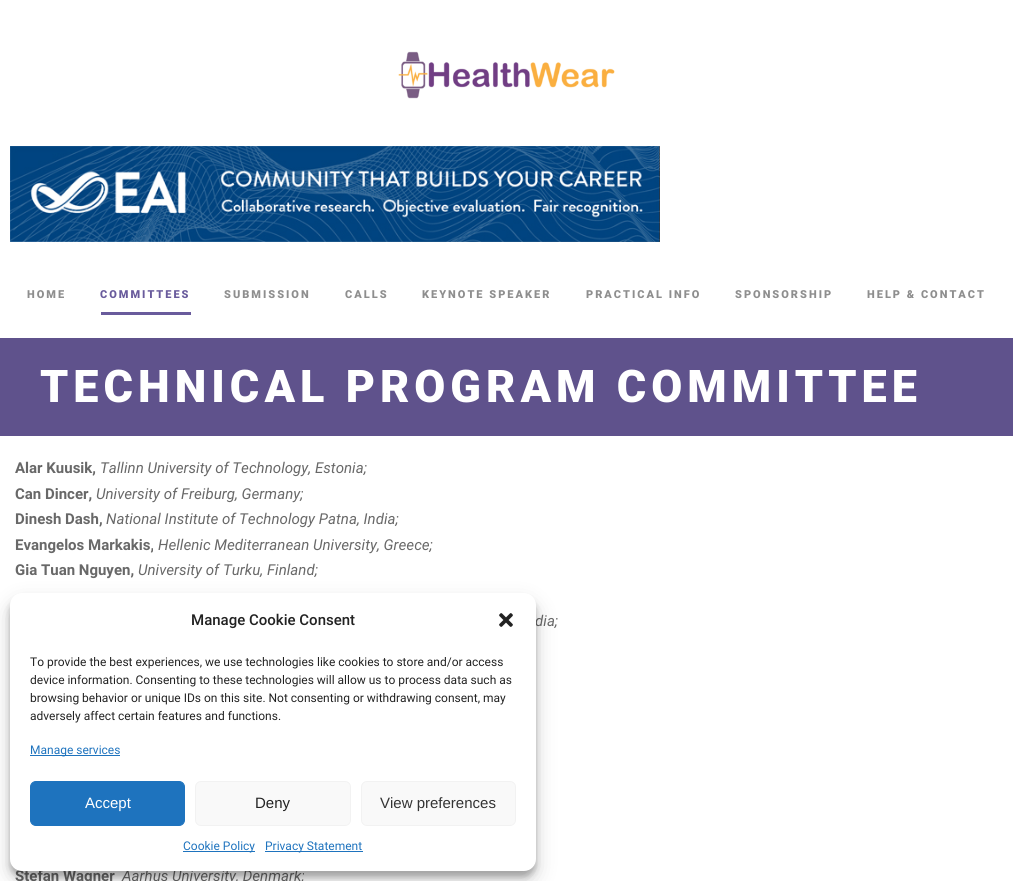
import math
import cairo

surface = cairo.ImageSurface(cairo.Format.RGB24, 1013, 881)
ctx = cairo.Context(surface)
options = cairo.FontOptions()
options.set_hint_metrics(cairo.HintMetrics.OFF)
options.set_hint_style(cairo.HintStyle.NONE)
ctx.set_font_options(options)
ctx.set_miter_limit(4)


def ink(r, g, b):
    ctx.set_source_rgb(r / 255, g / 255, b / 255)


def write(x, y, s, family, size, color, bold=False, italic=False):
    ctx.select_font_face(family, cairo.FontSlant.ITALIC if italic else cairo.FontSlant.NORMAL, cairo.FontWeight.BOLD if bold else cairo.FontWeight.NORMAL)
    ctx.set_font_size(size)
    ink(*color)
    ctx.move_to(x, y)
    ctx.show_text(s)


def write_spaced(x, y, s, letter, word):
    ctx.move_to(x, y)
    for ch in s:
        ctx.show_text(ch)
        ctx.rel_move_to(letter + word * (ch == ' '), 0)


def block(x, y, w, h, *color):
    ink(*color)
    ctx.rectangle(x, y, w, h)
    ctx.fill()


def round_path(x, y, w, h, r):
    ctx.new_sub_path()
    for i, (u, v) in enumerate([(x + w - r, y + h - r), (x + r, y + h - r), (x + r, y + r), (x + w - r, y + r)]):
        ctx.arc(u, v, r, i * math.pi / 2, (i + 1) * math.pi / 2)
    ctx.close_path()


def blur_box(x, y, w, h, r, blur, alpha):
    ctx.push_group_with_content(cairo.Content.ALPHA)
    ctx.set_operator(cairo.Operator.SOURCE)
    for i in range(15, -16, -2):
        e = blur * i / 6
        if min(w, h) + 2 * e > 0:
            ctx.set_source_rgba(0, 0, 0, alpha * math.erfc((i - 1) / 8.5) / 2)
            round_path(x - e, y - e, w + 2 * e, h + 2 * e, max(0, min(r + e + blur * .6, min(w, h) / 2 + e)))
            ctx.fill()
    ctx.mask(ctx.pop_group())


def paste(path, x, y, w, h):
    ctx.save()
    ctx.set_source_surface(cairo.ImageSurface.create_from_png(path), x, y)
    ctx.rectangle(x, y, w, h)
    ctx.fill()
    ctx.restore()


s1 = dict(family="Roboto", size=15, color=(104, 104, 104), bold=True)
s2 = dict(family="Roboto", size=15, color=(104, 104, 104), italic=True)
s3 = dict(family="Roboto Medium", size=15, color=(34, 34, 34))
s4 = dict(family="Roboto", size=12, color=(34, 34, 34))
s5 = dict(family="Roboto", size=12, color=(30, 115, 190))
s6 = dict(family="Liberation Sans", size=15, color=(255, 255, 255))
s7 = dict(family="Liberation Sans", size=15, color=(34, 34, 34))
s8 = dict(family="Liberation Sans", size=15, color=(51, 51, 51))

ink(255, 255, 255)
ctx.paint()
paste("pic1.png", 398, 51, 217, 48)
paste("pic2.png", 10, 146, 650, 96)
ctx.select_font_face("Roboto Black")
ctx.set_font_size(11)
ink(142, 142, 142)
write_spaced(27, 298, "HOME", 2, 0)
ink(105, 91, 156)
write_spaced(100, 298, "COMMITTEES", 2, 0)
ink(142, 142, 142)
write_spaced(224, 298, "SUBMISSION", 2, 0)
write_spaced(345, 298, "CALLS", 2, 0)
write_spaced(422, 298, "KEYNOTE SPEAKER", 2, 0)
write_spaced(586, 298, "PRACTICAL INFO", 2, 0)
write_spaced(735, 298, "SPONSORSHIP", 2, 0)
write_spaced(867, 298, "HELP & CONTACT", 2, 0)
block(101, 312, 90, 3, 105, 91, 156)
block(0, 338, 1013, 98, 95, 82, 140)
ctx.set_font_size(45)
ink(255, 255, 255)
write_spaced(40, 402, "TECHNICAL PROGRAM COMMITTEE", 5, 0)
write(15, 473, "Alar Kuusik,", **s1)
write(100, 473, "Tallinn University of Technology, Estonia;", **s2)
write(15, 499, "Can Dincer,", **s1)
write(96, 499, "University of Freiburg, Germany;", **s2)
write(15, 524, "Dinesh Dash,", **s1)
write(106, 524, "National Institute of Technology Patna, India;", **s2)
write(15, 550, "Evangelos Markakis,", **s1)
write(158, 550, "Hellenic Mediterranean University, Greece;", **s2)
write(15, 575, "Gia Tuan Nguyen,", **s1)
write(138, 575, "University of Turku, Finland;", **s2)
write(535, 626, "dia;", **s2)
write(15, 881, "Stefan Wagner", **s1)
write(122, 881, "Aarhus University, Denmark;", **s2)
ink(0, 0, 0)
blur_box(10, 599, 526, 278, 12, 3, 0.23)
blur_box(10, 603, 526, 278, 12, 10, 0.19)
ink(255, 255, 255)
round_path(10, 593, 526, 278, 12)
ctx.fill()
write(191, 625, "Manage Cookie Consent", **s3)
paste("pic3.png", 499, 613, 14, 14)
write(30, 666, "To provide the best experiences, we use technologies like cookies to store and/or access", **s4)
write(30, 684, "device information. Consenting to these technologies will allow us to process data such as", **s4)
write(30, 702, "browsing behavior or unique IDs on this site. Not consenting or withdrawing consent, may", **s4)
write(30, 720, "adversely affect certain features and functions.", **s4)
block(30, 755, 90, 1, 30, 115, 190)
write(30, 754, "Manage services", **s5)
round_path(30.5, 781.5, 154, 44, 5.5)
ctx.fill_preserve()
ctx.set_line_width(1)
ctx.stroke()
write(85, 808, "Accept", **s6)
ink(249, 249, 249)
round_path(195.5, 781.5, 155, 44, 5.5)
ctx.fill_preserve()
ink(242, 242, 242)
ctx.stroke()
write(255, 808, "Deny", **s7)
ink(249, 249, 249)
round_path(361.5, 781.5, 154, 44, 5.5)
ctx.fill_preserve()
ink(242, 242, 242)
ctx.stroke()
write(380, 808, "View preferences", **s8)
block(183, 851, 72, 1, 30, 115, 190)
write(183, 850, "Cookie Policy", **s5)
block(265, 851, 98, 1, 30, 115, 190)
write(265, 850, "Privacy Statement", **s5)
surface.write_to_png("screenshot.png")
